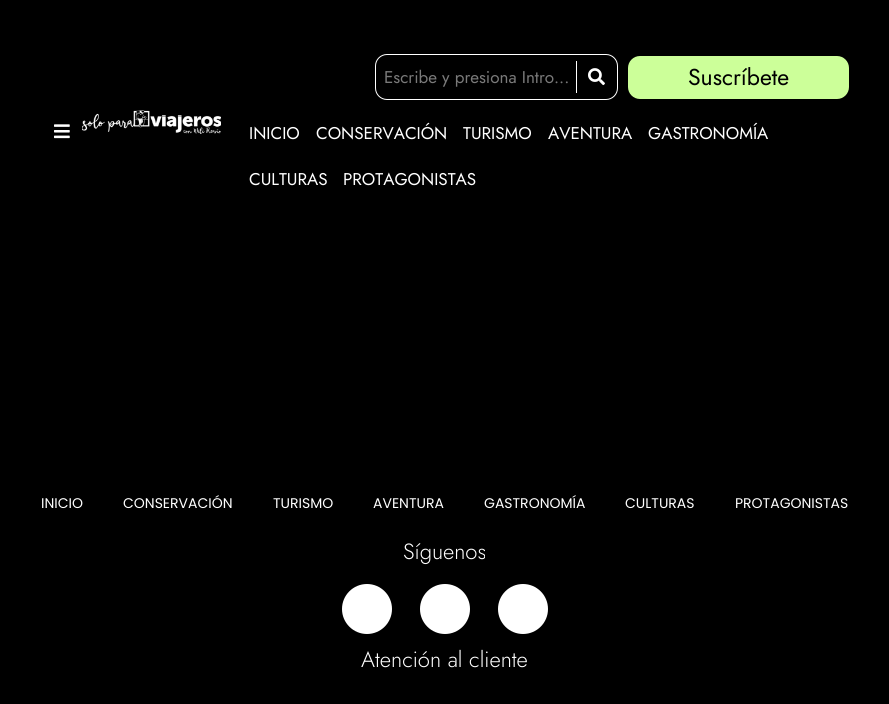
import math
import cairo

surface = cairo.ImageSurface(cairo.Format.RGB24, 889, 704)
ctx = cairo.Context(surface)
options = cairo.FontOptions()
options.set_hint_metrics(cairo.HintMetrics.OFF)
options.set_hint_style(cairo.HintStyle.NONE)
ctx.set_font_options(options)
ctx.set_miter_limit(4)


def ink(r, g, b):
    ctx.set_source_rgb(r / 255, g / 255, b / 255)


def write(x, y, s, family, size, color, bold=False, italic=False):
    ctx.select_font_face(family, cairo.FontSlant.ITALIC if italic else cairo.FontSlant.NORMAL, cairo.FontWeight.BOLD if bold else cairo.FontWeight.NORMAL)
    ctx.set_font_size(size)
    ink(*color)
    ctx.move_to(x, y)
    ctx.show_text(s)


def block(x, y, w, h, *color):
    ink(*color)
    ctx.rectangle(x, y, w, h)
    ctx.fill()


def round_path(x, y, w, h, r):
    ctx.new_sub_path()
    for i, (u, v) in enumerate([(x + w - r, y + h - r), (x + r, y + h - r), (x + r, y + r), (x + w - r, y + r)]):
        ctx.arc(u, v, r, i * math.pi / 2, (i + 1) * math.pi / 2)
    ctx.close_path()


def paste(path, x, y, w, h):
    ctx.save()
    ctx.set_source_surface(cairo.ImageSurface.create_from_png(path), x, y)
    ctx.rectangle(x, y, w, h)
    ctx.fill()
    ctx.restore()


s1 = dict(family="Jost", size=17, color=(122, 122, 122))
s2 = dict(family="Jost", size=23, color=(0, 0, 0))
s3 = dict(family="Jost", size=17, color=(255, 255, 255))
s4 = dict(family="Poppins", size=14, color=(255, 255, 255))
s5 = dict(family="Jost Light", size=22, color=(255, 255, 255))

ink(0, 0, 0)
ctx.paint()
round_path(375.5, 54.5, 242, 45, 11.5)
ink(255, 255, 255)
ctx.set_line_width(1)
ctx.stroke()
write(384, 83, "Escribe y presiona Intro...", **s1)
block(576, 61, 1, 32, 255, 255, 255)
paste("pic1.png", 588, 68, 17, 18)
ink(204, 255, 153)
round_path(628, 56, 221, 43, 12)
ctx.fill()
write(688, 85, "Suscríbete", **s2)
paste("pic2.png", 54, 124, 16, 15)
paste("pic3.png", 82, 110, 139, 24)
write(249, 139, "INICIO", **s3)
write(316, 139, "CONSERVACIÓN", **s3)
write(463, 139, "TURISMO", **s3)
write(548, 139, "AVENTURA", **s3)
write(648, 139, "GASTRONOMÍA", **s3)
write(249, 185, "CULTURAS", **s3)
write(343, 185, "PROTAGONISTAS", **s3)
write(41, 508, "INICIO", **s4)
write(123, 508, "CONSERVACIÓN", **s4)
write(273, 508, "TURISMO", **s4)
write(373, 508, "AVENTURA", **s4)
write(484, 508, "GASTRONOMÍA", **s4)
write(625, 508, "CULTURAS", **s4)
write(735, 508, "PROTAGONISTAS", **s4)
write(403, 559, "Síguenos", **s5)
ctx.new_path()
ctx.arc(367, 609, 25, 0, 2 * math.pi)
ctx.fill()
ctx.arc(445, 609, 25, 0, 2 * math.pi)
ctx.fill()
ctx.arc(523, 609, 25, 0, 2 * math.pi)
ctx.fill()
write(361, 667, "Atención al cliente", **s5)
surface.write_to_png("screenshot.png")
